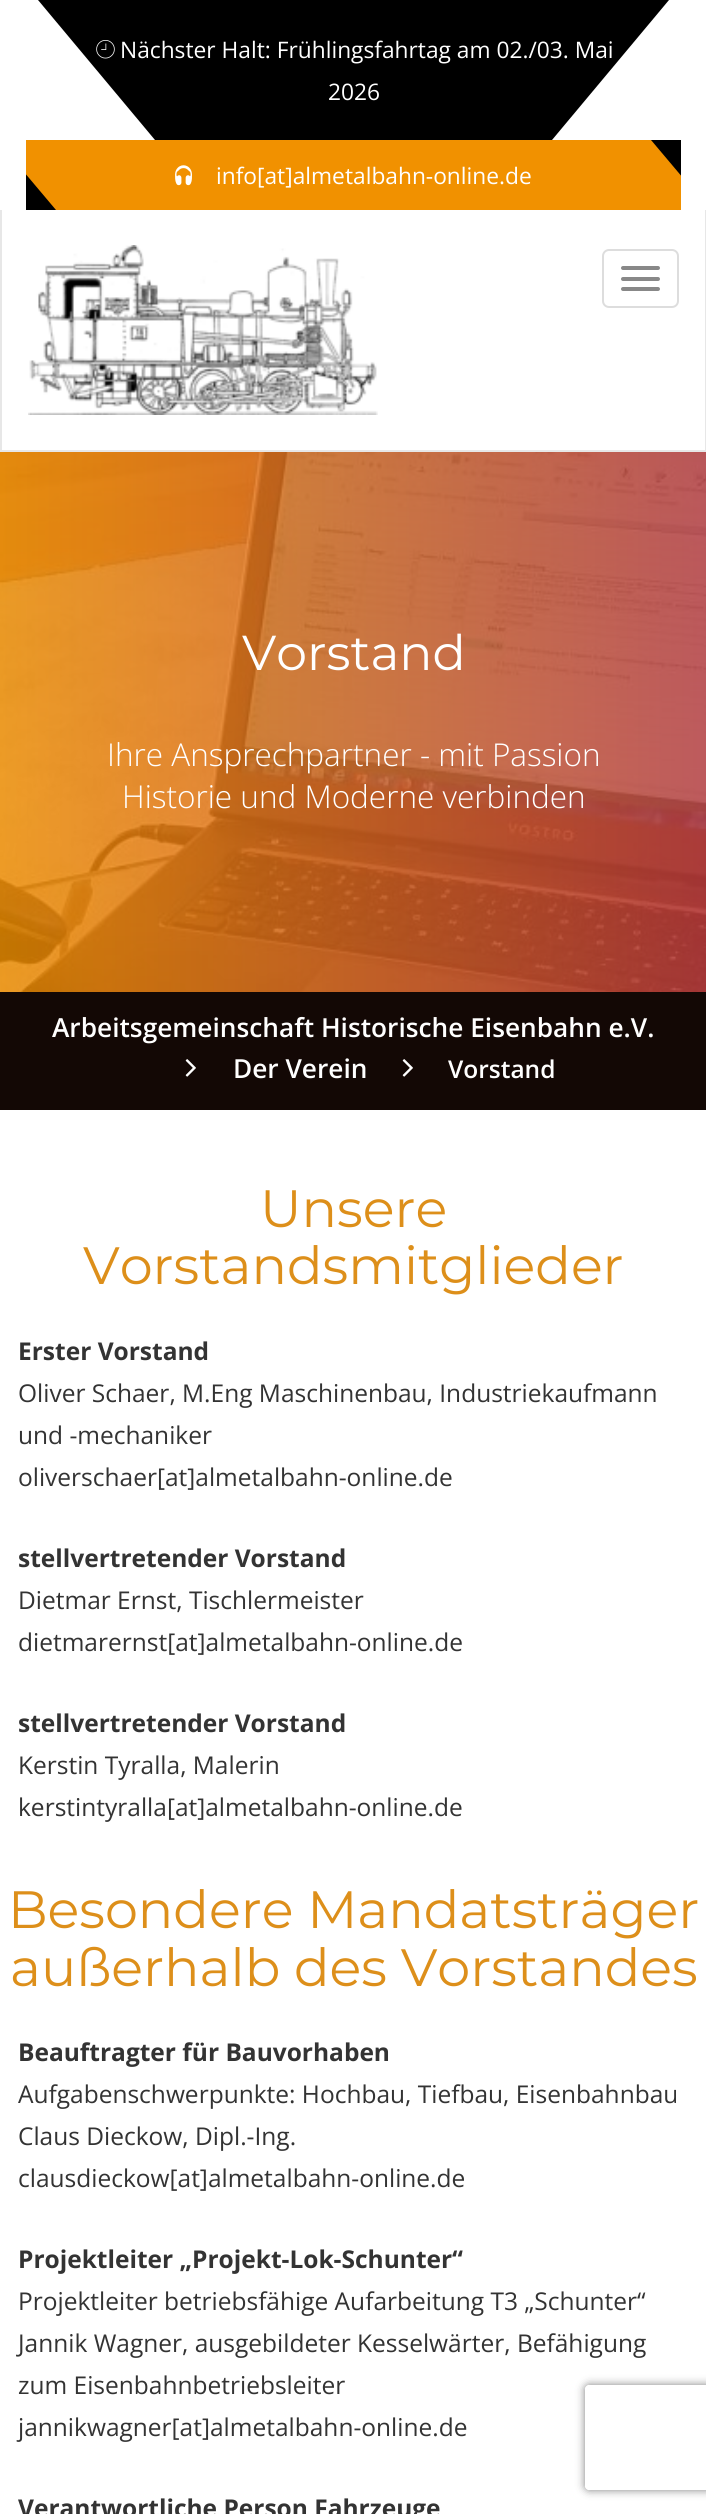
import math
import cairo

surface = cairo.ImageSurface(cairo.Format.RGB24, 706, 2514)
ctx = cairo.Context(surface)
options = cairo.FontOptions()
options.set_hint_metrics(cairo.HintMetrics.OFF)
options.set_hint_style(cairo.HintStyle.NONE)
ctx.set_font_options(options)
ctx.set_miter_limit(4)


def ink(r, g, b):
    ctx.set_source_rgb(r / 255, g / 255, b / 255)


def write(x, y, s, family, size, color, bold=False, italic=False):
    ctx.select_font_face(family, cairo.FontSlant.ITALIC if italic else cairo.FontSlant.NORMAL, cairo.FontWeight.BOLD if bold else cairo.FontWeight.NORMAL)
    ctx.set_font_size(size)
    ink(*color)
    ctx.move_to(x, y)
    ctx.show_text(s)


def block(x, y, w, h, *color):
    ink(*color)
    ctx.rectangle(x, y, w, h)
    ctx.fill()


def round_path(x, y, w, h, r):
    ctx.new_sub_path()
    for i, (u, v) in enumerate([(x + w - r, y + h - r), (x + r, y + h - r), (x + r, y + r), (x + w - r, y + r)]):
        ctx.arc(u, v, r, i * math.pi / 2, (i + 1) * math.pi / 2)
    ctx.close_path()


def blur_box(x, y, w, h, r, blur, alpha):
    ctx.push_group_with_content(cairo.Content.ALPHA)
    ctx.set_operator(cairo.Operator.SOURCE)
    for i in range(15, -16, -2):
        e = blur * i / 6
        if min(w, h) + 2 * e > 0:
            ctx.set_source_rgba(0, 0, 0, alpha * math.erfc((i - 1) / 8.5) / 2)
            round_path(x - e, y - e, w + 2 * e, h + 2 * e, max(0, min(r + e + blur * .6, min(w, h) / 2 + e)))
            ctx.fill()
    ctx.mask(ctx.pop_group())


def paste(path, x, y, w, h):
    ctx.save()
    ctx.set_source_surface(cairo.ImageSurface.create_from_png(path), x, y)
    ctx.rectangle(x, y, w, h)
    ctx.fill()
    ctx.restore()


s1 = dict(family="Open Sans", size=22.75, color=(255, 255, 255))
s2 = dict(family="Montserrat", size=49, color=(255, 255, 255))
s3 = dict(family="Open Sans Light", size=31.5, color=(255, 255, 255))
s4 = dict(family="Open Sans SemiBold", size=26.25, color=(255, 255, 255))
s5 = dict(family="Open Sans SemiBold", size=24.5, color=(255, 255, 255))
s6 = dict(family="Montserrat", size=52.5, color=(221, 143, 26))
s7 = dict(family="Open Sans", size=24.5, color=(51, 51, 51), bold=True)
s8 = dict(family="Open Sans", size=24.5, color=(51, 51, 51))

ink(255, 255, 255)
ctx.paint()
block(26, 0, 655, 210, 0, 0, 0)
paste("pic1.png", 96, 40, 19, 19)
ctx.save()
ctx.rectangle(26, 0, 655, 210)
ctx.clip()
ink(255, 255, 255)
ctx.new_path()
ctx.move_to(-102, 0)
ctx.line_to(38, 0)
ctx.line_to(155, 140)
ctx.line_to(15, 140)
ctx.close_path()
ctx.fill()
ctx.restore()
write(120, 58, "Nächster Halt: Frühlingsfahrtag am 02./03. Mai", **s1)
write(328, 100, "2026", **s1)
ctx.save()
ctx.rectangle(26, 0, 655, 210)
ctx.clip()
ctx.new_path()
ctx.move_to(669, 0)
ctx.line_to(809, 0)
ctx.line_to(692, 140)
ctx.line_to(552, 140)
ctx.close_path()
ctx.fill()
ink(241, 145, 0)
ctx.new_path()
ctx.move_to(-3, 140)
ctx.line_to(651, 140)
ctx.line_to(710, 210)
ctx.line_to(56, 210)
ctx.close_path()
ctx.fill()
ctx.restore()
paste("pic2.png", 175, 165, 17, 21)
write(216, 184, "info[at]almetalbahn-online.de", **s1)
block(705, 210, 1, 242, 231, 231, 231)
block(0, 450, 706, 2, 231, 231, 231)
block(0, 210, 2, 242, 231, 231, 231)
paste("pic3.png", 28, 245, 350, 170)
round_path(603, 250, 75, 57, 6)
ink(221, 221, 221)
ctx.stroke()
ink(136, 136, 136)
round_path(621, 266, 39, 4, 2)
ctx.fill()
round_path(621, 277, 39, 4, 2)
ctx.fill()
round_path(621, 287, 39, 4, 2)
ctx.fill()
paste("pic4.png", 0, 452, 706, 540)
write(242, 670, "Vorstand", **s2)
write(107, 766, "Ihre Ansprechpartner - mit Passion", **s3)
write(122, 808, "Historie und Moderne verbinden", **s3)
block(0, 992, 706, 118, 19, 8, 5)
write(52, 1037, "Arbeitsgemeinschaft Historische Eisenbahn e.V.", **s4)
paste("pic5.png", 185, 1059, 11, 18)
write(233, 1078, "Der Verein", **s4)
paste("pic5.png", 402, 1059, 11, 18)
write(448, 1078, "Vorstand", **s5)
write(260, 1227, "Unsere", **s6)
write(83, 1284, "Vorstandsmitglieder", **s6)
write(18, 1360, "Erster Vorstand", **s7)
write(18, 1402, "Oliver Schaer, M.Eng Maschinenbau, Industriekaufmann", **s8)
write(18, 1444, "und -mechaniker", **s8)
write(18, 1486, "oliverschaer[at]almetalbahn-online.de", **s8)
write(18, 1567, "stellvertretender Vorstand", **s7)
write(18, 1609, "Dietmar Ernst, Tischlermeister", **s8)
write(18, 1651, "dietmarernst[at]almetalbahn-online.de", **s8)
write(18, 1732, "stellvertretender Vorstand", **s7)
write(18, 1774, "Kerstin Tyralla, Malerin", **s8)
write(18, 1816, "kerstintyralla[at]almetalbahn-online.de", **s8)
write(8, 1928, "Besondere Mandatsträger", **s6)
write(10, 1986, "außerhalb des Vorstandes", **s6)
write(18, 2061, "Beauftragter für Bauvorhaben", **s7)
write(18, 2103, "Aufgabenschwerpunkte: Hochbau, Tiefbau, Eisenbahnbau", **s8)
write(18, 2145, "Claus Dieckow, Dipl.-Ing.", **s8)
write(18, 2187, "clausdieckow[at]almetalbahn-online.de", **s8)
write(18, 2268, "Projektleiter „Projekt-Lok-Schunter“", **s7)
write(18, 2310, "Projektleiter betriebsfähige Aufarbeitung T3 „Schunter“", **s8)
write(18, 2352, "Jannik Wagner, ausgebildeter Kesselwärter, Befähigung", **s8)
write(18, 2394, "zum Eisenbahnbetriebsleiter", **s8)
write(18, 2436, "jannikwagner[at]almetalbahn-online.de", **s8)
write(18, 2517, "Verantwortliche Person Fahrzeuge", **s7)
ctx.save()
ctx.set_fill_rule(cairo.FillRule.EVEN_ODD)
ctx.new_path()
ctx.move_to(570, 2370)
ctx.line_to(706, 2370)
ctx.line_to(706, 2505)
ctx.line_to(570, 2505)
ctx.close_path()
ctx.move_to(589, 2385)
ctx.line_to(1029, 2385)
ctx.curve_to(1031, 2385, 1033, 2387, 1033, 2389)
ctx.line_to(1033, 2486)
ctx.curve_to(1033, 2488, 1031, 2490, 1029, 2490)
ctx.line_to(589, 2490)
ctx.curve_to(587, 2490, 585, 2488, 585, 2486)
ctx.line_to(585, 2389)
ctx.curve_to(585, 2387, 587, 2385, 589, 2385)
ctx.close_path()
ctx.clip()
ink(128, 128, 128)
blur_box(585, 2385, 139, 105, 4, 4.5, 1)
ctx.restore()
surface.write_to_png("screenshot.png")
